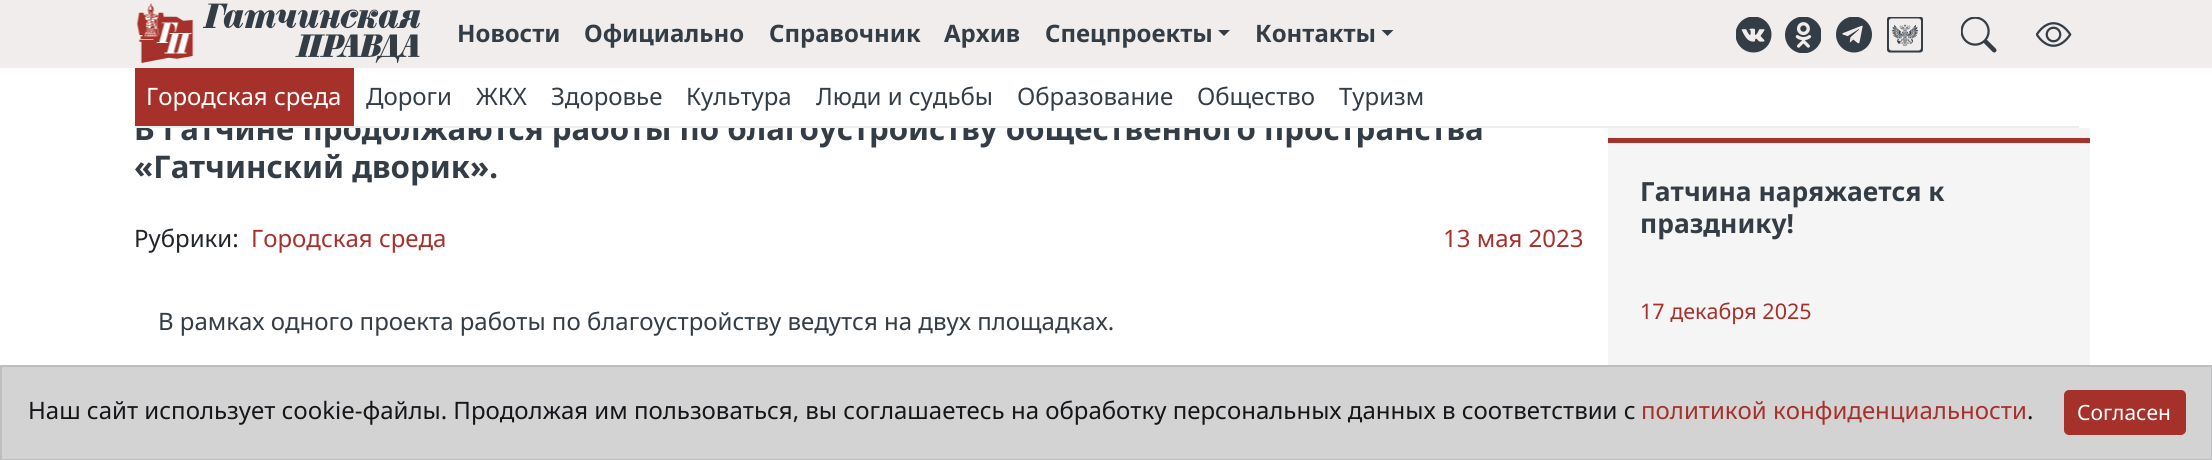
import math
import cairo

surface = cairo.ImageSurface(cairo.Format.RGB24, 2212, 460)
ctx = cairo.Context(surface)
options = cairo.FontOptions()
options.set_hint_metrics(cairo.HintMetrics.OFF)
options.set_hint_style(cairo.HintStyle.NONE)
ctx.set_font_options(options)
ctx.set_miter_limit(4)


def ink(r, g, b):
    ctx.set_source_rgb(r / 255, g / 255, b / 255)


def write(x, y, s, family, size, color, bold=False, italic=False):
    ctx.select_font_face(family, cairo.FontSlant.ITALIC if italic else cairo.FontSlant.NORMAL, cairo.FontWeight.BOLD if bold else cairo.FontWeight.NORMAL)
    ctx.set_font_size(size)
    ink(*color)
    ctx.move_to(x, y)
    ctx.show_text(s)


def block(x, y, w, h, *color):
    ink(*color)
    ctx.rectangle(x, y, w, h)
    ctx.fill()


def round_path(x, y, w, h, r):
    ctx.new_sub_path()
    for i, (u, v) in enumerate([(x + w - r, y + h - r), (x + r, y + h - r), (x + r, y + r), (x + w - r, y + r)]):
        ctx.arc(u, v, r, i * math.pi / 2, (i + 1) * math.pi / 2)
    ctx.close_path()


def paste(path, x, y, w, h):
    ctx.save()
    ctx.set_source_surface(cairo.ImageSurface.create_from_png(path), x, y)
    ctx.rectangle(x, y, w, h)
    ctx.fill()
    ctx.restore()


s1 = dict(family="Noto Sans", size=24, color=(52, 61, 70), bold=True)
s2 = dict(family="Noto Sans", size=31.2, color=(52, 61, 70), bold=True)
s3 = dict(family="Noto Sans", size=24, color=(255, 255, 255))
s4 = dict(family="Noto Sans", size=24, color=(52, 61, 70))
s5 = dict(family="Noto Sans", size=24, color=(33, 37, 41))
s6 = dict(family="Noto Sans", size=24, color=(166, 49, 42))
s7 = dict(family="Noto Sans", size=26.4, color=(52, 61, 70), bold=True)
s8 = dict(family="Noto Sans", size=21.5, color=(166, 49, 42))
s9 = dict(family="Noto Sans", size=24, color=(20, 22, 25))
s10 = dict(family="Noto Sans", size=21, color=(255, 255, 255))

ink(255, 255, 255)
ctx.paint()
block(0, 0, 2212, 68, 240, 237, 236)
paste("pic1.png", 136, 3, 58, 60)
paste("pic2.png", 203, 3, 218, 60)
write(457, 42, "Новости", **s1)
write(584, 42, "Официально", **s1)
write(769, 42, "Справочник", **s1)
write(944, 42, "Архив", **s1)
write(1045, 42, "Спецпроекты", **s1)
ctx.new_path()
ctx.move_to(1218, 30)
ctx.line_to(1230, 30)
ctx.line_to(1224, 36)
ctx.close_path()
ctx.fill()
write(1255, 42, "Контакты", **s1)
ctx.new_path()
ctx.move_to(1381.5, 30)
ctx.line_to(1393.5, 30)
ctx.line_to(1387.5, 36)
ctx.close_path()
ctx.fill()
paste("pic3.png", 1736, 17, 36, 36)
paste("pic4.png", 1785, 17, 36, 36)
paste("pic5.png", 1836, 17, 36, 36)
paste("pic6.png", 1887, 17, 36, 36)
paste("pic7.png", 1961, 17, 36, 36)
paste("pic8.png", 2036, 22, 36, 25)
write(134, 140, "В Гатчине продолжаются работы по благоустройству общественного пространства", **s2)
block(136, 115, 1346, 13, 255, 255, 255)
block(135, 126, 1944, 2, 238, 238, 238)
block(135, 68, 219, 58, 166, 49, 42)
write(146, 105, "Городская среда", **s3)
write(366, 105, "Дороги", **s4)
write(476, 105, "ЖКХ", **s4)
write(551, 105, "Здоровье", **s4)
write(686, 105, "Культура", **s4)
write(816, 105, "Люди и судьбы", **s4)
write(1017, 105, "Образование", **s4)
write(1197, 105, "Общество", **s4)
write(1339, 105, "Туризм", **s4)
write(134, 178, "«Гатчинский дворик».", **s2)
write(134, 247, "Рубрики:", **s5)
write(251, 247, "Городская среда", **s6)
write(1443, 247, "13 мая 2023", **s6)
write(158, 330, "В рамках одного проекта работы по благоустройству ведутся на двух площадках.", **s4)
block(1608, 128, 482, 237, 245, 245, 245)
block(1608, 138, 482, 5, 166, 49, 42)
write(1640, 201, "Гатчина наряжается к", **s7)
write(1640, 233, "празднику!", **s7)
write(1640, 319, "17 декабря 2025", **s8)
ink(211, 211, 212)
ctx.rectangle(1, 366, 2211, 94)
ctx.fill_preserve()
ink(188, 190, 191)
ctx.stroke()
write(28, 419, "Наш сайт использует cookie-файлы. Продолжая им пользоваться, вы соглашаетесь на обработку персональных данных в соответствии с", **s9)
write(1641, 419, "политикой конфиденциальности", **s6)
write(2027, 419, ".", **s9)
ink(166, 49, 42)
round_path(2065, 391, 120, 43, 4)
ctx.fill_preserve()
ctx.stroke()
write(2077, 420, "Согласен", **s10)
surface.write_to_png("screenshot.png")
